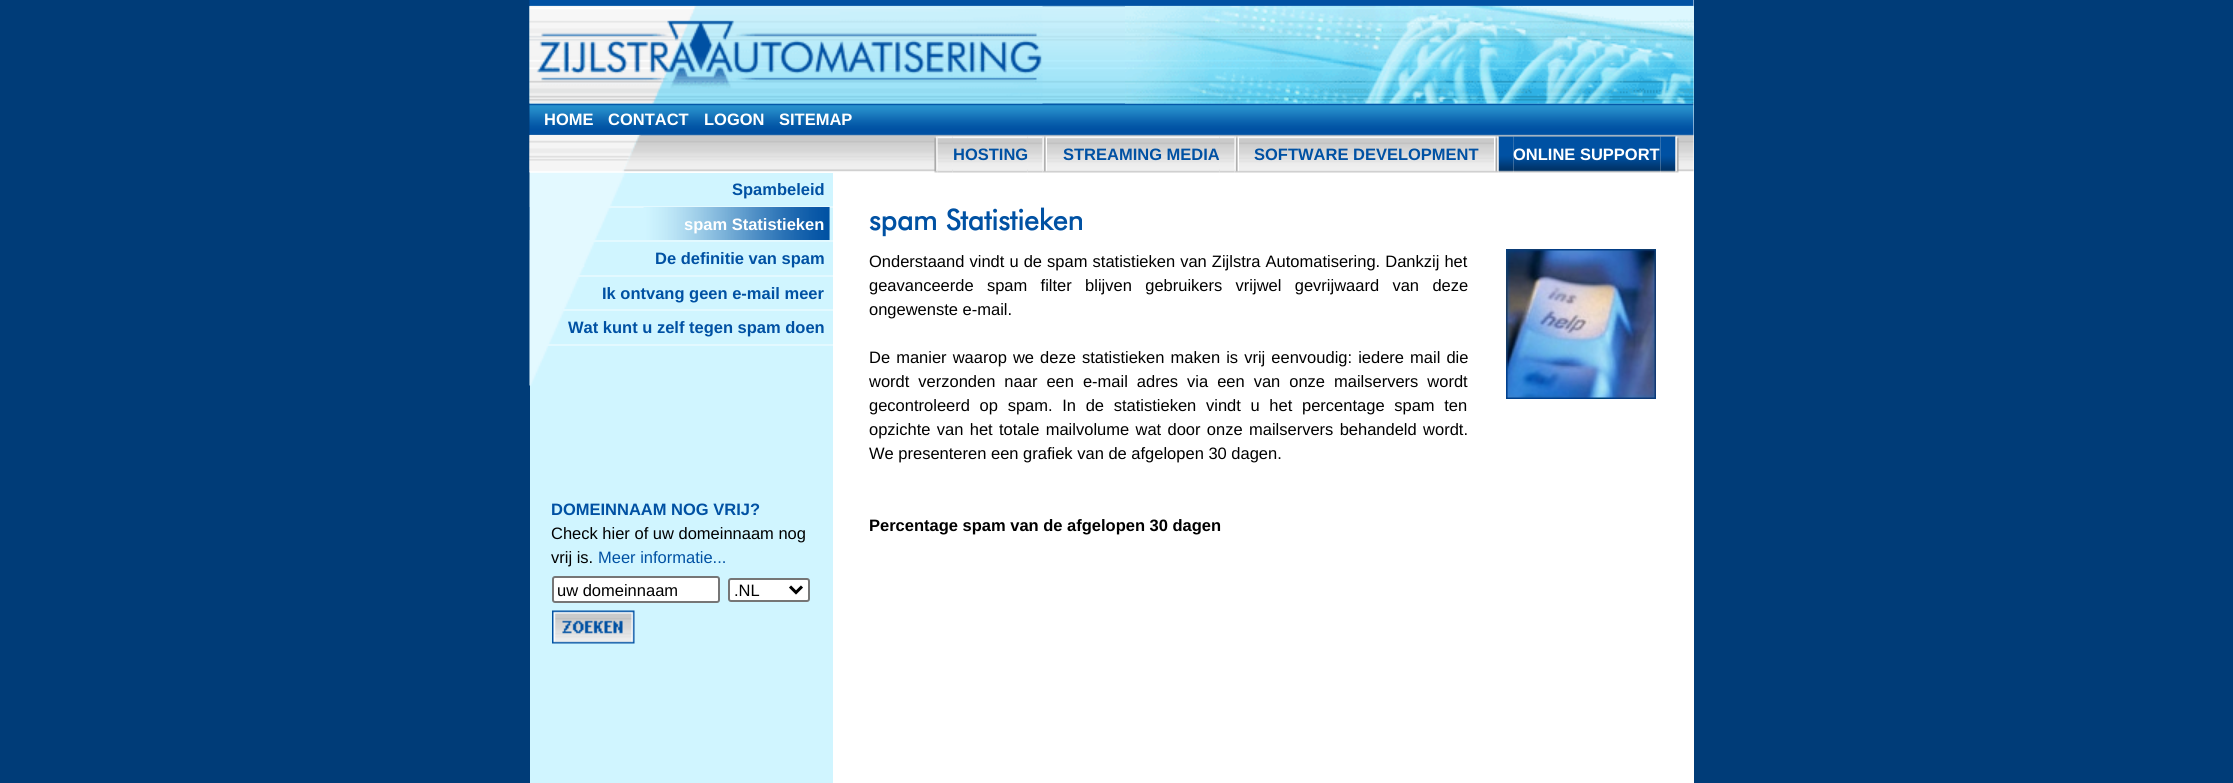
import math
import cairo

surface = cairo.ImageSurface(cairo.Format.RGB24, 2233, 783)
ctx = cairo.Context(surface)
options = cairo.FontOptions()
options.set_hint_metrics(cairo.HintMetrics.OFF)
options.set_hint_style(cairo.HintStyle.NONE)
ctx.set_font_options(options)
ctx.set_miter_limit(4)


def ink(r, g, b):
    ctx.set_source_rgb(r / 255, g / 255, b / 255)


def write(x, y, s, family, size, color, bold=False, italic=False):
    ctx.select_font_face(family, cairo.FontSlant.ITALIC if italic else cairo.FontSlant.NORMAL, cairo.FontWeight.BOLD if bold else cairo.FontWeight.NORMAL)
    ctx.set_font_size(size)
    ink(*color)
    ctx.move_to(x, y)
    ctx.show_text(s)


def write_spaced(x, y, s, letter, word):
    ctx.move_to(x, y)
    for ch in s:
        ctx.show_text(ch)
        ctx.rel_move_to(letter + word * (ch == ' '), 0)


def block(x, y, w, h, *color):
    ink(*color)
    ctx.rectangle(x, y, w, h)
    ctx.fill()


def round_path(x, y, w, h, r):
    ctx.new_sub_path()
    for i, (u, v) in enumerate([(x + w - r, y + h - r), (x + r, y + h - r), (x + r, y + r), (x + w - r, y + r)]):
        ctx.arc(u, v, r, i * math.pi / 2, (i + 1) * math.pi / 2)
    ctx.close_path()


def paste(path, x, y, w, h):
    ctx.save()
    ctx.set_source_surface(cairo.ImageSurface.create_from_png(path), x, y)
    ctx.rectangle(x, y, w, h)
    ctx.fill()
    ctx.restore()


s1 = dict(family="Liberation Sans", size=16.5, color=(255, 255, 255), bold=True)
s2 = dict(family="Liberation Sans", size=16.5, color=(0, 81, 163), bold=True)
s3 = dict(family="Liberation Sans", size=16.5, color=(0, 0, 0))
s4 = dict(family="Liberation Sans", size=16.5, color=(0, 81, 163))
s5 = dict(family="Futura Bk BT", size=28.5, color=(0, 81, 163), bold=True)
s6 = dict(family="Liberation Sans", size=16.5, color=(0, 0, 0), bold=True)

ink(0, 60, 120)
ctx.paint()
block(530, 0, 1164, 783, 255, 255, 255)
paste("pic1.png", 529, 0, 1165, 173)
paste("pic2.png", 529, 6, 514, 98)
paste("pic3.png", 1125, 6, 569, 98)
write(544, 125, "HOME", **s1)
write(608, 125, "CONTACT", **s1)
write(704, 125, "LOGON", **s1)
write(779, 125, "SITEMAP", **s1)
block(530, 173, 303, 610, 208, 245, 255)
paste("pic19.png", 529, 172, 97, 214)
paste("pic4.png", 529, 135, 112, 38)
paste("pic6.png", 937, 136, 16, 37)
paste("pic5.png", 934, 136, 4, 37)
paste("pic7.png", 952, 136, 76, 37)
paste("pic8.png", 1027, 136, 16, 37)
write(953, 160, "HOSTING", **s2)
paste("pic9.png", 1042, 136, 5, 37)
paste("pic10.png", 1047, 136, 15, 37)
paste("pic11.png", 1062, 136, 158, 37)
write(1063, 160, "STREAMING MEDIA", **s2)
paste("pic8.png", 1219, 136, 16, 37)
paste("pic12.png", 1234, 136, 5, 37)
paste("pic10.png", 1239, 136, 15, 37)
paste("pic13.png", 1254, 136, 225, 37)
write(1254, 160, "SOFTWARE DEVELOPMENT", **s2)
paste("pic10.png", 1479, 136, 15, 37)
paste("pic15.png", 1498, 136, 16, 37)
paste("pic14.png", 1494, 136, 5, 37)
paste("pic16.png", 1513, 136, 148, 37)
write(1513, 160, "ONLINE SUPPORT", **s1)
paste("pic17.png", 1660, 136, 16, 37)
paste("pic18.png", 1675, 136, 4, 37)
write(732, 195, "Spambeleid", **s2)
block(608, 206, 225, 2, 227, 249, 255)
paste("pic20.png", 529, 207, 301, 33)
write(684, 230, "spam Statistieken", **s1)
block(593, 240, 240, 2, 227, 249, 255)
write(655, 264, "De definitie van spam", **s2)
block(578, 275, 255, 2, 227, 249, 255)
write(602, 299, "Ik ontvang geen e-mail meer", **s2)
block(563, 309, 270, 2, 227, 249, 255)
write(568, 333, "Wat kunt u zelf tegen spam doen", **s2)
block(547, 344, 286, 2, 227, 249, 255)
write(551, 515, "DOMEINNAAM NOG VRIJ?", **s2)
write(551, 539, "Check hier of uw domeinnaam nog", **s3)
write(551, 563, "vrij is.", **s3)
write(598, 563, "Meer informatie...", **s4)
ink(255, 255, 255)
round_path(553, 577, 166, 25, 2)
ctx.fill_preserve()
ink(118, 118, 118)
ctx.stroke()
write(557, 596, "uw domeinnaam", **s3)
ink(255, 255, 255)
round_path(729, 579, 80, 22, 2)
ctx.fill_preserve()
ink(118, 118, 118)
ctx.stroke()
ctx.new_path()
ctx.move_to(790, 586.5)
ctx.line_to(796, 592.5)
ctx.line_to(802, 586.5)
ink(0, 0, 0)
ctx.set_line_width(3)
ctx.stroke()
write(734, 596, ".NL", **s3)
paste("pic21.png", 552, 610, 83, 34)
write(869, 230, "spam Statistieken", **s5)
ctx.select_font_face("Liberation Sans")
ctx.set_font_size(16.5)
ink(0, 0, 0)
write_spaced(869, 267, "Onderstaand vindt u de spam statistieken van Zijlstra Automatisering. Dankzij het", 0, 0.5)
write_spaced(869, 291, "geavanceerde spam filter blijven gebruikers vrijwel gevrijwaard van deze", 0, 8.75)
write(869, 315, "ongewenste e-mail.", **s3)
write_spaced(869, 363, "De manier waarop we deze statistieken maken is vrij eenvoudig: iedere mail die", 0, 1.5)
write_spaced(869, 387, "wordt verzonden naar een e-mail adres via een van onze mailservers wordt", 0, 4.4)
write_spaced(869, 411, "gecontroleerd op spam. In de statistieken vindt u het percentage spam ten", 0, 5.1)
write_spaced(869, 435, "opzichte van het totale mailvolume wat door onze mailservers behandeld wordt.", 0, 1.75)
write(869, 459, "We presenteren een grafiek van de afgelopen 30 dagen.", **s3)
write(869, 531, "Percentage spam van de afgelopen 30 dagen", **s6)
paste("pic22.png", 1506, 249, 150, 150)
surface.write_to_png("screenshot.png")
